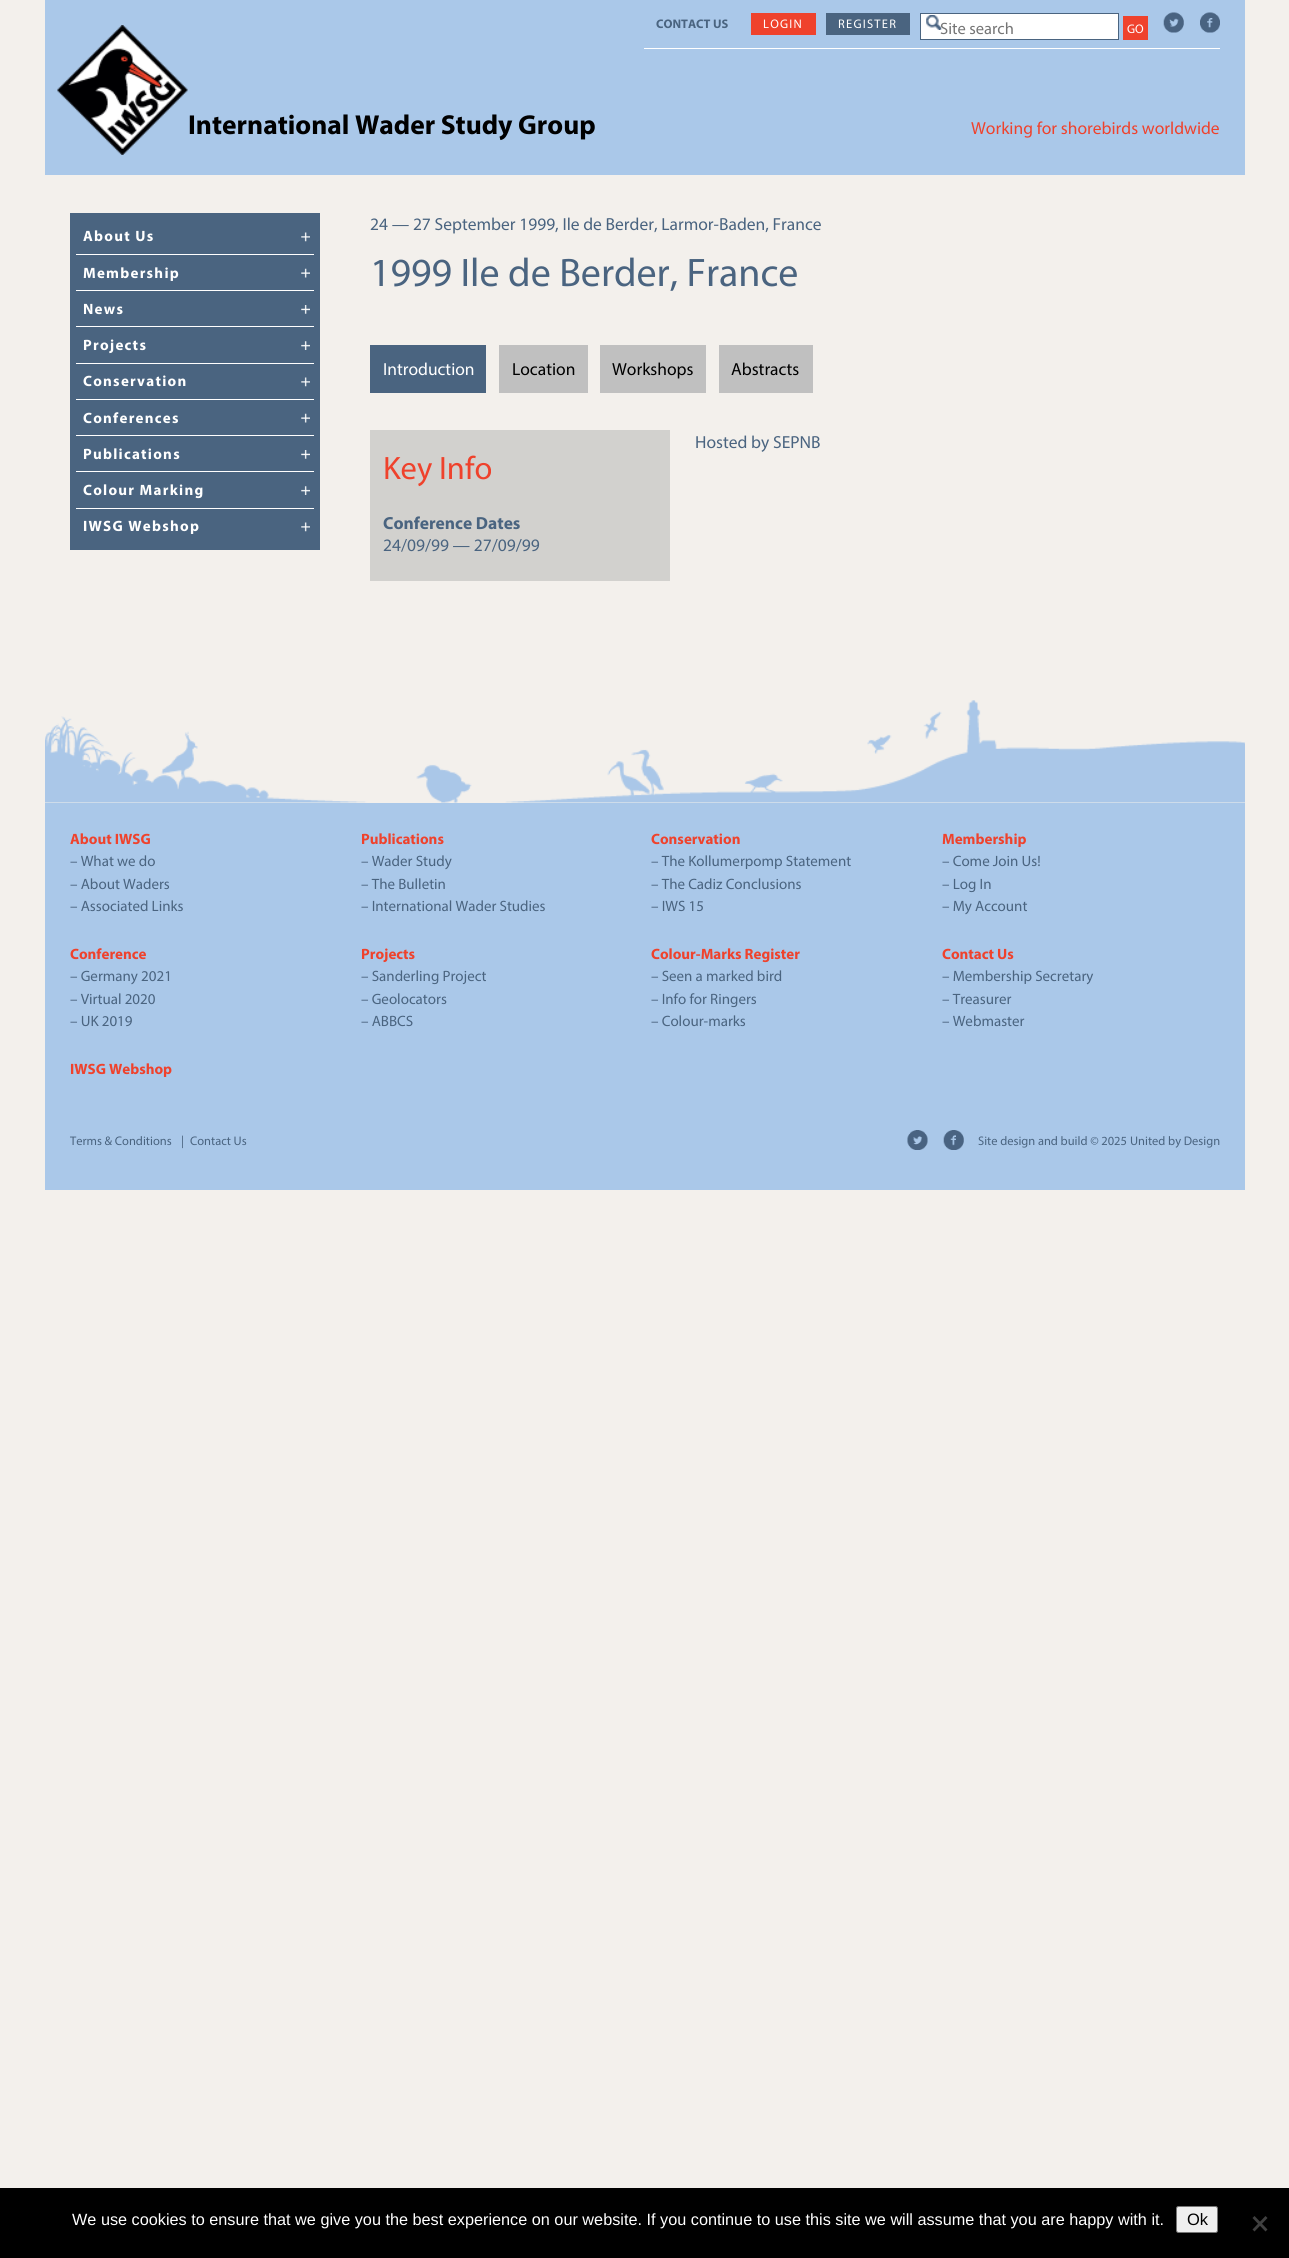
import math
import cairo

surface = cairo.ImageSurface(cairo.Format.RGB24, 1289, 2258)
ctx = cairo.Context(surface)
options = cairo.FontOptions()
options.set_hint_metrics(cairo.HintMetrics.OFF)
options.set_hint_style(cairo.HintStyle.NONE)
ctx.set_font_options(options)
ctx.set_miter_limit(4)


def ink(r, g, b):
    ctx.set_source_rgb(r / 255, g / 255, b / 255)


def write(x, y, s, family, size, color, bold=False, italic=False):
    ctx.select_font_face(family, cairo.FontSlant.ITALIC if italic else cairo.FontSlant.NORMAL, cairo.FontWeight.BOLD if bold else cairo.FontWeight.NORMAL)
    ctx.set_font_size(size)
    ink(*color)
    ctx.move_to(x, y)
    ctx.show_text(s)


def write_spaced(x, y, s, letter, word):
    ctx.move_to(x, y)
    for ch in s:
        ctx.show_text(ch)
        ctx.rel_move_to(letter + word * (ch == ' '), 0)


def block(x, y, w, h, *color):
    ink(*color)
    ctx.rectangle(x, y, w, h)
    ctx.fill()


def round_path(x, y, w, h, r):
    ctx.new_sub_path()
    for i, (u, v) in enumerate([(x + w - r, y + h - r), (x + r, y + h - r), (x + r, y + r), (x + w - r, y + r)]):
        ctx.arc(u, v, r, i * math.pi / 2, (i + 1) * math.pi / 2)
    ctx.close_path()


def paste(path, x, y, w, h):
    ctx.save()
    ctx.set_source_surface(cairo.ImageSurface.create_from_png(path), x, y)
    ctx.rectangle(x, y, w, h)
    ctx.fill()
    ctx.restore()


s1 = dict(family="Myriad", size=12.5, color=(74, 100, 128), bold=True)
s2 = dict(family="Myriad", size=16.5, color=(117, 117, 117))
s3 = dict(family="Myriad", size=12.5, color=(255, 255, 255))
s4 = dict(family="Myriad", size=27.5, color=(0, 0, 0), bold=True)
s5 = dict(family="Myriad", size=17.5, color=(239, 66, 44))
s6 = dict(family="Myriad", size=17.5, color=(74, 100, 128))
s7 = dict(family="Myriad", size=40, color=(74, 100, 128))
s8 = dict(family="Myriad", size=17.5, color=(255, 255, 255))
s9 = dict(family="Myriad", size=17.5, color=(0, 0, 0))
s10 = dict(family="Myriad", size=32.5, color=(239, 66, 44))
s11 = dict(family="Myriad", size=17.5, color=(74, 100, 128), bold=True)
s12 = dict(family="Myriad", size=15, color=(239, 66, 44), bold=True)
s13 = dict(family="Myriad", size=15, color=(74, 100, 128))
s14 = dict(family="Myriad", size=12.5, color=(74, 100, 128))
s15 = dict(family="Liberation Sans", size=16.25, color=(255, 255, 255))
s16 = dict(family="Liberation Sans", size=16.5, color=(0, 0, 0))

ink(243, 240, 236)
ctx.paint()
block(45, 0, 1200, 175, 170, 200, 233)
block(644, 48, 576, 1, 255, 255, 255)
write(656, 28, "CONTACT US", **s1)
block(751, 13, 65, 22, 239, 66, 44)
ctx.select_font_face("Myriad")
ink(255, 255, 255)
write_spaced(763, 28, "LOGIN", 1.25, 0)
block(826, 13, 84, 22, 74, 100, 128)
ink(255, 255, 255)
write_spaced(838, 28, "REGISTER", 1.25, 0)
block(921, 14, 197, 25, 255, 255, 255)
paste("pic1.png", 926, 15, 16, 15)
ctx.rectangle(920.5, 13.5, 198, 26)
ink(74, 100, 128)
ctx.set_line_width(1)
ctx.stroke()
write(940, 34, "Site search", **s2)
block(1123, 16, 25, 24, 239, 66, 44)
write(1127, 33, "GO", **s3)
paste("pic2.png", 1163, 12, 21, 21)
paste("pic3.png", 1200, 12, 20, 21)
paste("pic4.png", 57, 25, 131, 130)
write(188, 134, "International Wader Study Group", **s4)
write(971, 134, "Working for shorebirds worldwide", **s5)
block(70, 213, 250, 337, 74, 100, 128)
paste("pic5.png", 301, 232, 9, 10)
block(76, 254, 238, 1, 255, 255, 255)
ctx.select_font_face("Myriad", cairo.FontSlant.NORMAL, cairo.FontWeight.BOLD)
ctx.set_font_size(15)
write_spaced(83, 241, "About Us", 1.25, 0)
paste("pic6.png", 301, 268, 9, 10)
block(76, 290, 238, 1, 255, 255, 255)
write_spaced(83, 278, "Membership", 1.25, 0)
paste("pic7.png", 301, 305, 9, 9)
block(76, 326, 238, 1, 255, 255, 255)
write_spaced(83, 314, "News", 1.25, 0)
paste("pic8.png", 301, 341, 9, 9)
block(76, 363, 238, 1, 255, 255, 255)
write_spaced(83, 350, "Projects", 1.25, 0)
paste("pic5.png", 301, 377, 9, 10)
block(76, 399, 238, 1, 255, 255, 255)
write_spaced(83, 386, "Conservation", 1.25, 0)
paste("pic6.png", 301, 413, 9, 10)
block(76, 435, 238, 1, 255, 255, 255)
write_spaced(83, 423, "Conferences", 1.25, 0)
paste("pic7.png", 301, 450, 9, 9)
block(76, 471, 238, 1, 255, 255, 255)
write_spaced(83, 459, "Publications", 1.25, 0)
paste("pic8.png", 301, 486, 9, 9)
block(76, 508, 238, 1, 255, 255, 255)
write_spaced(83, 495, "Colour Marking", 1.25, 0)
paste("pic5.png", 301, 522, 9, 10)
write_spaced(83, 531, "IWSG Webshop", 1.25, 0)
write(370, 230, "24 — 27 September 1999, Ile de Berder, Larmor-Baden, France", **s6)
write(370, 286, "1999 Ile de Berder, France", **s7)
block(370, 345, 116, 48, 74, 100, 128)
write(383, 375, "Introduction", **s8)
block(499, 345, 89, 48, 192, 192, 192)
write(512, 375, "Location", **s9)
block(600, 345, 106, 48, 192, 192, 192)
write(612, 375, "Workshops", **s9)
block(719, 345, 94, 48, 192, 192, 192)
write(731, 375, "Abstracts", **s9)
write(695, 448, "Hosted by SEPNB", **s6)
block(370, 430, 300, 151, 210, 209, 206)
write(383, 479, "Key Info", **s10)
write(383, 529, "Conference Dates", **s11)
write(383, 551, "24/09/99 — 27/09/99", **s6)
paste("pic9.png", 45, 700, 1200, 103)
block(45, 803, 1200, 387, 170, 200, 233)
write(70, 844, "About IWSG", **s12)
write(70, 866, "– What we do", **s13)
write(70, 889, "– About Waders", **s13)
write(70, 911, "– Associated Links", **s13)
write(361, 844, "Publications", **s12)
write(361, 866, "– Wader Study", **s13)
write(361, 889, "– The Bulletin", **s13)
write(361, 911, "– International Wader Studies", **s13)
write(651, 844, "Conservation", **s12)
write(651, 866, "– The Kollumerpomp Statement", **s13)
write(651, 889, "– The Cadiz Conclusions", **s13)
write(651, 911, "– IWS 15", **s13)
write(942, 844, "Membership", **s12)
write(942, 866, "– Come Join Us!", **s13)
write(942, 889, "– Log In", **s13)
write(942, 911, "– My Account", **s13)
write(70, 959, "Conference", **s12)
write(70, 981, "– Germany 2021", **s13)
write(70, 1004, "– Virtual 2020", **s13)
write(70, 1026, "– UK 2019", **s13)
write(361, 959, "Projects", **s12)
write(361, 981, "– Sanderling Project", **s13)
write(361, 1004, "– Geolocators", **s13)
write(361, 1026, "– ABBCS", **s13)
write(651, 959, "Colour-Marks Register", **s12)
write(651, 981, "– Seen a marked bird", **s13)
write(651, 1004, "– Info for Ringers", **s13)
write(651, 1026, "– Colour-marks", **s13)
write(942, 959, "Contact Us", **s12)
write(942, 981, "– Membership Secretary", **s13)
write(942, 1004, "– Treasurer", **s13)
write(942, 1026, "– Webmaster", **s13)
write(70, 1074, "IWSG Webshop", **s12)
write(70, 1145, "Terms & Conditions", **s14)
write(181, 1145, "|", **s14)
write(190, 1145, "Contact Us", **s14)
paste("pic10.png", 907, 1130, 21, 20)
paste("pic11.png", 943, 1130, 21, 20)
write(978, 1145, "Site design and build © 2025", **s14)
write(1130, 1145, "United by Design", **s14)
block(0, 2188, 1289, 70, 0, 0, 0)
write(72, 2225, "We use cookies to ensure that we give you the best experience on our website. If you continue to use this site we will assume that you are happy with it.", **s15)
ink(239, 239, 239)
round_path(1176.5, 2206.5, 41, 26, 2)
ctx.fill_preserve()
ink(118, 118, 118)
ctx.stroke()
write(1187, 2225, "Ok", **s16)
ink(64, 64, 64)
ctx.new_path()
ctx.move_to(1265.5, 2216)
ctx.line_to(1267.5, 2218)
ctx.line_to(1254.5, 2231.5)
ctx.line_to(1252.5, 2229.5)
ctx.close_path()
ctx.fill()
ctx.new_path()
ctx.move_to(1252.5, 2218)
ctx.line_to(1254.5, 2216)
ctx.line_to(1267.5, 2229.5)
ctx.line_to(1265.5, 2231.5)
ctx.close_path()
ctx.fill()
surface.write_to_png("screenshot.png")
